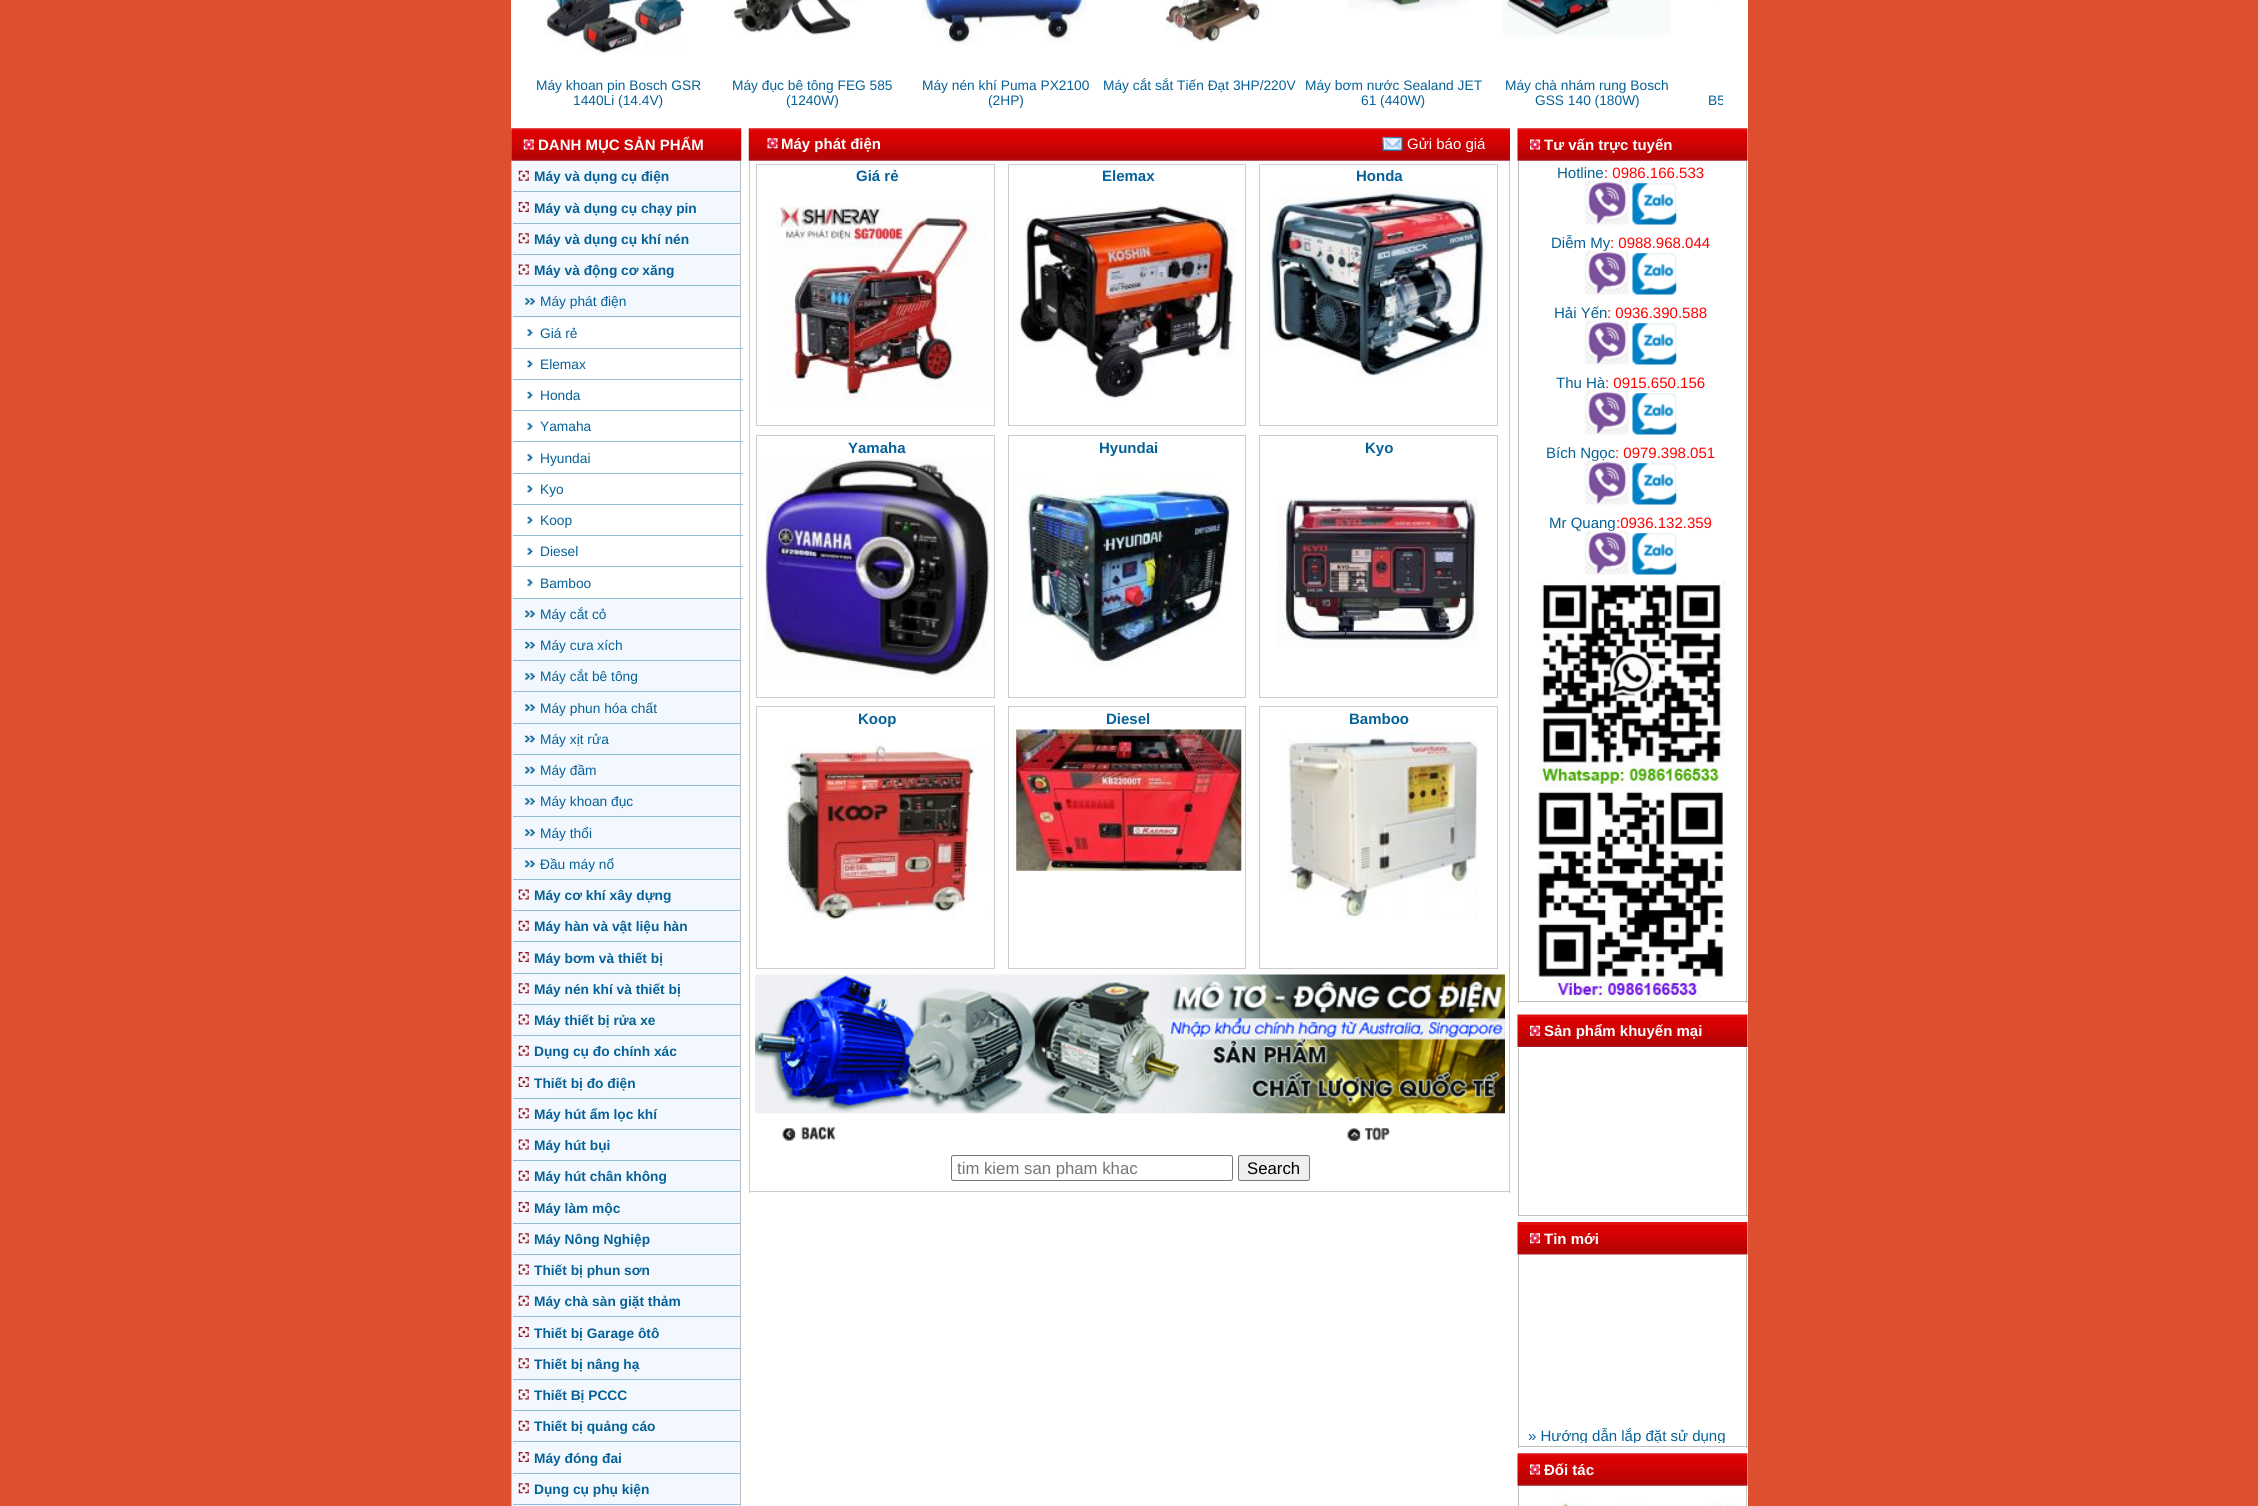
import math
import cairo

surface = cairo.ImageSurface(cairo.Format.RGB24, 2258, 1506)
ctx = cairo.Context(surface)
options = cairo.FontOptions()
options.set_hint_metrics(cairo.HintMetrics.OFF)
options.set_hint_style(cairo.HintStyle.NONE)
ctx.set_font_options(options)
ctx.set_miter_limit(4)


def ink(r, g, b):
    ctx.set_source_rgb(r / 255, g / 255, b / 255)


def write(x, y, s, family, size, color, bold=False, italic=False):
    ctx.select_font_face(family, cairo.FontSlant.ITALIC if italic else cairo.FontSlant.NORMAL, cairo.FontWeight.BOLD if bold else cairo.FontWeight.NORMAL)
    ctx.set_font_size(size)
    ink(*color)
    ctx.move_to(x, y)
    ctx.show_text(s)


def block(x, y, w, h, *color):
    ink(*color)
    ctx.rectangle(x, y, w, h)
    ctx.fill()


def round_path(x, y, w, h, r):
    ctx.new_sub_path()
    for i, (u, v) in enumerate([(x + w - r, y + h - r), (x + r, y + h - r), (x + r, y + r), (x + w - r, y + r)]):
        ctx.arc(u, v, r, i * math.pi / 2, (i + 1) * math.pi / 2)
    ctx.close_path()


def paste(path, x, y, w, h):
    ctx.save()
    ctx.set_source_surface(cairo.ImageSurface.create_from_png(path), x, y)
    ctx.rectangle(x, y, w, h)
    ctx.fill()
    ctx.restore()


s1 = dict(family="Liberation Sans", size=13.75, color=(5, 97, 151))
s2 = dict(family="Liberation Sans", size=15, color=(255, 255, 255), bold=True)
s3 = dict(family="Liberation Sans", size=13.75, color=(5, 97, 151), bold=True)
s4 = dict(family="Liberation Sans", size=15, color=(255, 255, 255))
s5 = dict(family="Liberation Sans", size=15, color=(5, 97, 151), bold=True)
s6 = dict(family="Liberation Sans", size=16.75, color=(117, 117, 117))
s7 = dict(family="Liberation Sans", size=16.75, color=(0, 0, 0))
s8 = dict(family="Liberation Sans", size=15, color=(5, 97, 151))
s9 = dict(family="Liberation Sans", size=15, color=(255, 0, 0))

ink(222, 79, 47)
ctx.paint()
block(511, 0, 1237, 1506, 255, 255, 255)
paste("pic1.png", 545, 0, 143, 56)
write(536, 90, "Máy khoan pin Bosch GSR", **s1)
write(573, 105, "1440Li (14.4V)", **s1)
paste("pic2.png", 728, 0, 130, 39)
write(732, 90, "Máy đục bê tông FEG 585", **s1)
write(786, 105, "(1240W)", **s1)
paste("pic3.png", 921, 0, 165, 44)
write(922, 90, "Máy nén khí Puma PX2100", **s1)
write(988, 105, "(2HP)", **s1)
paste("pic4.png", 1164, 0, 101, 43)
write(1103, 90, "Máy cắt sắt Tiến Đạt 3HP/220V", **s1)
paste("pic5.png", 1348, 0, 121, 12)
write(1305, 90, "Máy bơm nước Sealand JET", **s1)
write(1361, 105, "61 (440W)", **s1)
paste("pic6.png", 1502, 0, 169, 36)
write(1505, 90, "Máy chà nhám rung Bosch", **s1)
write(1535, 105, "GSS 140 (180W)", **s1)
block(1715, 0, 3, 3, 253, 255, 250)
ctx.save()
ctx.rectangle(536, 0, 1187, 126)
ctx.clip()
write(1708, 105, "B5", **s1)
ctx.restore()
block(511, 129, 230, 1377, 243, 248, 254)
paste("pic7.png", 511, 128, 231, 33)
paste("pic8.png", 523, 139, 11, 11)
write(538, 150, "DANH MỤC SẢN PHẨM", **s2)
block(740, 161, 1, 1345, 191, 191, 191)
block(511, 161, 1, 1345, 191, 191, 191)
paste("pic9.png", 518, 170, 11, 11)
block(513, 191, 227, 1, 146, 188, 213)
write(534, 181, "Máy và dụng cụ điện", **s3)
paste("pic10.png", 518, 202, 11, 10)
block(513, 223, 227, 1, 146, 188, 213)
write(534, 213, "Máy và dụng cụ chạy pin", **s3)
paste("pic11.png", 518, 233, 11, 11)
block(513, 254, 227, 1, 146, 188, 213)
write(534, 244, "Máy và dụng cụ khí nén", **s3)
paste("pic12.png", 518, 264, 11, 11)
block(513, 285, 227, 1, 146, 188, 213)
write(534, 275, "Máy và động cơ xăng", **s3)
paste("pic13.png", 525, 297, 10, 9)
block(513, 316, 227, 1, 146, 188, 213)
write(540, 306, "Máy phát điện", **s1)
block(513, 318, 227, 280, 255, 255, 255)
paste("pic14.png", 527, 328, 6, 9)
block(513, 348, 230, 1, 146, 188, 213)
write(540, 338, "Giá rẻ", **s1)
paste("pic15.png", 527, 359, 6, 10)
block(513, 379, 230, 1, 146, 188, 213)
write(540, 369, "Elemax", **s1)
paste("pic16.png", 527, 391, 6, 9)
block(513, 410, 230, 1, 146, 188, 213)
write(540, 400, "Honda", **s1)
paste("pic17.png", 527, 422, 6, 9)
block(513, 441, 230, 1, 146, 188, 213)
write(540, 431, "Yamaha", **s1)
paste("pic14.png", 527, 453, 6, 9)
block(513, 473, 230, 1, 146, 188, 213)
write(540, 463, "Hyundai", **s1)
paste("pic15.png", 527, 484, 6, 10)
block(513, 504, 230, 1, 146, 188, 213)
write(540, 494, "Kyo", **s1)
paste("pic16.png", 527, 516, 6, 9)
block(513, 535, 230, 1, 146, 188, 213)
write(540, 525, "Koop", **s1)
paste("pic17.png", 527, 547, 6, 9)
block(513, 566, 230, 1, 146, 188, 213)
write(540, 556, "Diesel", **s1)
paste("pic14.png", 527, 578, 6, 9)
block(513, 598, 230, 1, 146, 188, 213)
write(540, 588, "Bamboo", **s1)
paste("pic18.png", 525, 609, 10, 9)
block(513, 629, 227, 1, 146, 188, 213)
write(540, 619, "Máy cắt cỏ", **s1)
paste("pic19.png", 525, 641, 10, 9)
block(513, 660, 227, 1, 146, 188, 213)
write(540, 650, "Máy cưa xích", **s1)
paste("pic13.png", 525, 672, 10, 9)
block(513, 691, 227, 1, 146, 188, 213)
write(540, 681, "Máy cắt bê tông", **s1)
paste("pic20.png", 525, 703, 10, 9)
block(513, 723, 227, 1, 146, 188, 213)
write(540, 713, "Máy phun hóa chất", **s1)
paste("pic18.png", 525, 734, 10, 9)
block(513, 754, 227, 1, 146, 188, 213)
write(540, 744, "Máy xịt rửa", **s1)
paste("pic19.png", 525, 766, 10, 9)
block(513, 785, 227, 1, 146, 188, 213)
write(540, 775, "Máy đầm", **s1)
paste("pic13.png", 525, 797, 10, 9)
block(513, 816, 227, 1, 146, 188, 213)
write(540, 806, "Máy khoan đục", **s1)
paste("pic20.png", 525, 828, 10, 9)
block(513, 848, 227, 1, 146, 188, 213)
write(540, 838, "Máy thổi", **s1)
paste("pic18.png", 525, 859, 10, 9)
block(513, 879, 227, 1, 146, 188, 213)
write(540, 869, "Đầu máy nổ", **s1)
paste("pic12.png", 518, 889, 11, 11)
block(513, 910, 227, 1, 146, 188, 213)
write(534, 900, "Máy cơ khí xây dựng", **s3)
paste("pic9.png", 518, 920, 11, 11)
block(513, 941, 227, 1, 146, 188, 213)
write(534, 931, "Máy hàn và vật liệu hàn", **s3)
paste("pic10.png", 518, 952, 11, 10)
block(513, 973, 227, 1, 146, 188, 213)
write(534, 963, "Máy bơm và thiết bị", **s3)
paste("pic11.png", 518, 983, 11, 11)
block(513, 1004, 227, 1, 146, 188, 213)
write(534, 994, "Máy nén khí và thiết bị", **s3)
paste("pic12.png", 518, 1014, 11, 11)
block(513, 1035, 227, 1, 146, 188, 213)
write(534, 1025, "Máy thiết bị rửa xe", **s3)
paste("pic9.png", 518, 1045, 11, 11)
block(513, 1066, 227, 1, 146, 188, 213)
write(534, 1056, "Dụng cụ đo chính xác", **s3)
paste("pic10.png", 518, 1077, 11, 10)
block(513, 1098, 227, 1, 146, 188, 213)
write(534, 1088, "Thiết bị đo điện", **s3)
paste("pic11.png", 518, 1108, 11, 11)
block(513, 1129, 227, 1, 146, 188, 213)
write(534, 1119, "Máy hút ẩm lọc khí", **s3)
paste("pic12.png", 518, 1139, 11, 11)
block(513, 1160, 227, 1, 146, 188, 213)
write(534, 1150, "Máy hút bụi", **s3)
paste("pic9.png", 518, 1170, 11, 11)
block(513, 1191, 227, 1, 146, 188, 213)
write(534, 1181, "Máy hút chân không", **s3)
paste("pic10.png", 518, 1202, 11, 10)
block(513, 1223, 227, 1, 146, 188, 213)
write(534, 1213, "Máy làm mộc", **s3)
paste("pic11.png", 518, 1233, 11, 11)
block(513, 1254, 227, 1, 146, 188, 213)
write(534, 1244, "Máy Nông Nghiệp", **s3)
paste("pic12.png", 518, 1264, 11, 11)
block(513, 1285, 227, 1, 146, 188, 213)
write(534, 1275, "Thiết bị phun sơn", **s3)
paste("pic9.png", 518, 1295, 11, 11)
block(513, 1316, 227, 1, 146, 188, 213)
write(534, 1306, "Máy chà sàn giặt thảm", **s3)
paste("pic10.png", 518, 1327, 11, 10)
block(513, 1348, 227, 1, 146, 188, 213)
write(534, 1338, "Thiết bị Garage ôtô", **s3)
paste("pic11.png", 518, 1358, 11, 11)
block(513, 1379, 227, 1, 146, 188, 213)
write(534, 1369, "Thiết bị nâng hạ", **s3)
paste("pic12.png", 518, 1389, 11, 11)
block(513, 1410, 227, 1, 146, 188, 213)
write(534, 1400, "Thiết Bị PCCC", **s3)
paste("pic9.png", 518, 1420, 11, 11)
block(513, 1441, 227, 1, 146, 188, 213)
write(534, 1431, "Thiết bị quảng cáo", **s3)
paste("pic10.png", 518, 1452, 11, 10)
block(513, 1473, 227, 1, 146, 188, 213)
write(534, 1463, "Máy đóng đai", **s3)
paste("pic11.png", 518, 1483, 11, 11)
block(513, 1504, 227, 1, 146, 188, 213)
write(534, 1494, "Dụng cụ phụ kiện", **s3)
paste("pic21.png", 748, 128, 762, 33)
paste("pic22.png", 767, 138, 11, 11)
write(781, 149, "Máy phát điện", **s2)
paste("pic23.png", 1382, 136, 21, 15)
write(1407, 149, "Gửi báo giá", **s4)
block(1509, 161, 1, 1032, 204, 204, 204)
block(749, 1191, 761, 1, 204, 204, 204)
block(749, 161, 1, 1032, 204, 204, 204)
ctx.rectangle(756.5, 164.5, 238, 261)
ctx.set_line_width(1)
ctx.stroke()
write(856, 181, "Giá rẻ", **s5)
paste("pic24.png", 775, 206, 211, 201)
ctx.rectangle(1008.5, 164.5, 237, 261)
ink(204, 204, 204)
ctx.stroke()
write(1102, 181, "Elemax", **s5)
paste("pic25.png", 1016, 205, 221, 202)
ctx.rectangle(1259.5, 164.5, 238, 261)
ink(204, 204, 204)
ctx.stroke()
write(1356, 181, "Honda", **s5)
paste("pic26.png", 1267, 187, 221, 190)
ctx.rectangle(756.5, 435.5, 238, 262)
ink(204, 204, 204)
ctx.stroke()
write(848, 453, "Yamaha", **s5)
paste("pic27.png", 765, 458, 225, 221)
ctx.rectangle(1008.5, 435.5, 237, 262)
ink(204, 204, 204)
ctx.stroke()
write(1099, 453, "Hyundai", **s5)
paste("pic28.png", 1021, 479, 210, 188)
ctx.rectangle(1259.5, 435.5, 238, 262)
ink(204, 204, 204)
ctx.stroke()
write(1365, 453, "Kyo", **s5)
paste("pic29.png", 1277, 498, 201, 150)
ctx.rectangle(756.5, 706.5, 238, 262)
ink(204, 204, 204)
ctx.stroke()
write(858, 724, "Koop", **s5)
paste("pic30.png", 785, 741, 200, 179)
ctx.rectangle(1008.5, 706.5, 237, 262)
ink(204, 204, 204)
ctx.stroke()
write(1106, 724, "Diesel", **s5)
paste("pic31.png", 1016, 729, 226, 142)
ctx.rectangle(1259.5, 706.5, 238, 262)
ink(204, 204, 204)
ctx.stroke()
write(1349, 724, "Bamboo", **s5)
paste("pic32.png", 1287, 730, 191, 190)
paste("pic33.png", 755, 974, 750, 140)
paste("pic34.png", 782, 1126, 54, 15)
paste("pic35.png", 1347, 1127, 44, 14)
round_path(951.5, 1155.5, 281, 25, 2)
ink(118, 118, 118)
ctx.stroke()
write(957, 1174, "tim kiem san pham khac", **s6)
ink(239, 239, 239)
round_path(1238.5, 1155.5, 71, 25, 2)
ctx.fill_preserve()
ink(118, 118, 118)
ctx.stroke()
write(1247, 1174, "Search", **s7)
paste("pic36.png", 1517, 128, 231, 33)
paste("pic37.png", 1530, 139, 10, 11)
write(1544, 150, "Tư vấn trực tuyến", **s2)
block(1746, 161, 1, 842, 191, 191, 191)
block(1518, 1001, 230, 1, 191, 191, 191)
block(1518, 161, 1, 842, 191, 191, 191)
write(1557, 178, "Hotline", **s8)
write(1604, 178, ": 0986.166.533", **s9)
paste("pic38.png", 1585, 180, 44, 45)
paste("pic39.png", 1632, 183, 45, 42)
write(1551, 248, "Diễm My", **s8)
write(1610, 248, ": 0988.968.044", **s9)
paste("pic40.png", 1585, 250, 44, 45)
paste("pic39.png", 1632, 253, 45, 42)
write(1554, 318, "Hải Yến", **s8)
write(1607, 318, ": 0936.390.588", **s9)
paste("pic41.png", 1585, 320, 44, 45)
paste("pic42.png", 1632, 323, 45, 42)
write(1556, 388, "Thu Hà", **s8)
write(1605, 388, ": 0915.650.156", **s9)
paste("pic38.png", 1585, 390, 44, 45)
paste("pic39.png", 1632, 393, 45, 42)
write(1546, 458, "Bích Ngọc", **s8)
write(1615, 458, ": 0979.398.051", **s9)
paste("pic43.png", 1585, 460, 44, 45)
paste("pic39.png", 1632, 463, 45, 42)
write(1549, 528, "Mr Quang", **s8)
write(1616, 528, ":0936.132.359", **s9)
paste("pic44.png", 1585, 530, 44, 45)
paste("pic39.png", 1632, 533, 45, 42)
paste("pic45.png", 1537, 581, 188, 206)
paste("pic46.png", 1537, 791, 188, 206)
paste("pic47.png", 1517, 1014, 231, 33)
paste("pic48.png", 1530, 1025, 10, 11)
write(1544, 1036, "Sản phẩm khuyến mại", **s2)
block(1746, 1048, 1, 168, 191, 191, 191)
block(1518, 1215, 230, 1, 191, 191, 191)
block(1518, 1048, 1, 168, 191, 191, 191)
paste("pic49.png", 1517, 1222, 231, 33)
paste("pic50.png", 1530, 1233, 10, 11)
write(1544, 1244, "Tin mới", **s2)
block(1746, 1255, 1, 193, 191, 191, 191)
block(1518, 1446, 230, 1, 191, 191, 191)
block(1518, 1255, 1, 193, 191, 191, 191)
ctx.save()
ctx.rectangle(1519, 1255, 212, 188)
ctx.clip()
write(1528, 1441, "» Hướng dẫn lắp đặt sử dụng", **s8)
ctx.restore()
paste("pic51.png", 1517, 1453, 231, 33)
paste("pic37.png", 1530, 1464, 10, 11)
write(1544, 1475, "Đối tác", **s2)
block(1746, 1486, 1, 20, 191, 191, 191)
block(1518, 1486, 1, 20, 191, 191, 191)
paste("pic52.png", 1557, 1493, 190, 13)
surface.write_to_png("screenshot.png")
